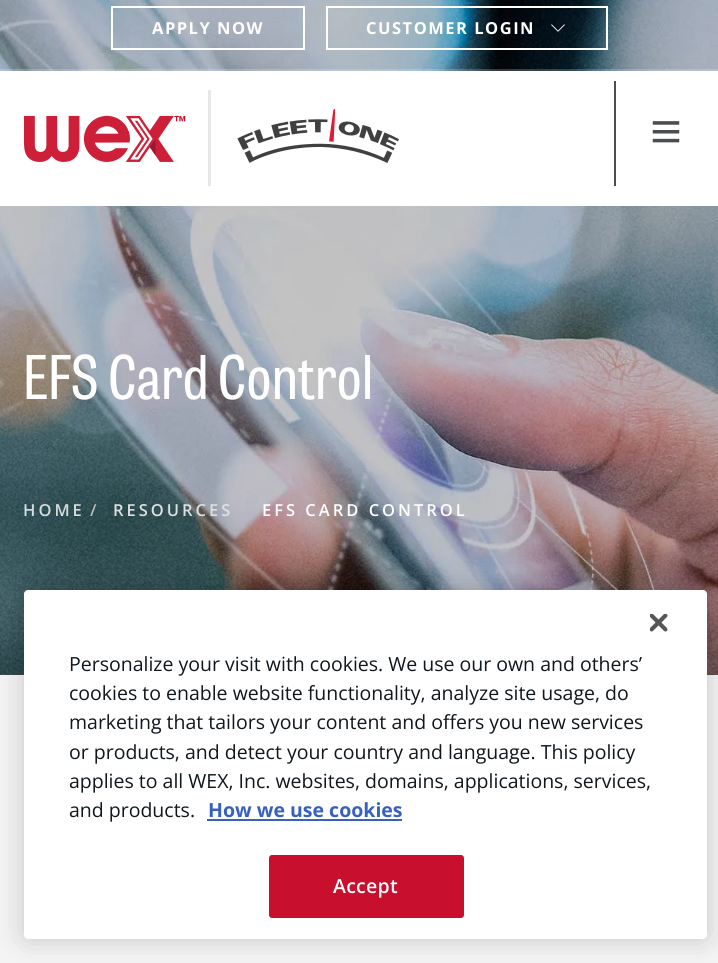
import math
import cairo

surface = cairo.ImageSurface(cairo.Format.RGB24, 718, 963)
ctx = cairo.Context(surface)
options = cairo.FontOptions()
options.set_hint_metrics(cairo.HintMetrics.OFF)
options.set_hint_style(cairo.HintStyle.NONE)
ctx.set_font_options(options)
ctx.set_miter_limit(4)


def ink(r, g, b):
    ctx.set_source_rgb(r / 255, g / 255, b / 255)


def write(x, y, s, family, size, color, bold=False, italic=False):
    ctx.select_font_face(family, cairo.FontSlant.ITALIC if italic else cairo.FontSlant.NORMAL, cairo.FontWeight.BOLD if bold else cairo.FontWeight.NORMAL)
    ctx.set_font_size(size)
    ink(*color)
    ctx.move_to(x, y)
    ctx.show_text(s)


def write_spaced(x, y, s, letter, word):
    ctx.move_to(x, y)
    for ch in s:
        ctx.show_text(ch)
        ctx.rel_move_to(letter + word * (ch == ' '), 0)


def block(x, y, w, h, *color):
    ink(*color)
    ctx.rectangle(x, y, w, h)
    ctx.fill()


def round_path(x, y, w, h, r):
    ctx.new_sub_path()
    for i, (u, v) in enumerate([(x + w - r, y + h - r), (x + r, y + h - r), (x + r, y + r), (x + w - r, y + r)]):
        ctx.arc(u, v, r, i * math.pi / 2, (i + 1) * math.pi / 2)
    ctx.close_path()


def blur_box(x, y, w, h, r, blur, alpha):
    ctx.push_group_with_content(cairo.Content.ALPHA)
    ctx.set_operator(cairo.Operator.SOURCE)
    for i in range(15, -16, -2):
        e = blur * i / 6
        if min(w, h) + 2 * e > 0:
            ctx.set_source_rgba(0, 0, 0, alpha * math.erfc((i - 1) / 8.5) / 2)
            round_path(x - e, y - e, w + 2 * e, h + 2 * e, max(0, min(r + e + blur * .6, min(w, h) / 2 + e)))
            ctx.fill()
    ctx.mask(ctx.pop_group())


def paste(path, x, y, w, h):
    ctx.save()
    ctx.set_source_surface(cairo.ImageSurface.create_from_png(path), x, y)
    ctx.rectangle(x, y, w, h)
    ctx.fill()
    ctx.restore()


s1 = dict(family="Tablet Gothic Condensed", size=60, color=(255, 255, 255))
s2 = dict(family="Open Sans", size=19.5, color=(16, 23, 29))
s3 = dict(family="Open Sans", size=19.5, color=(56, 96, 190), bold=True)

ink(244, 244, 244)
ctx.paint()
block(0, 674, 718, 1, 76, 77, 79)
paste("pic4.png", 0, 0, 718, 675)
ctx.set_source_rgba(1, 1, 1, 0.2)
ctx.rectangle(0, 69, 718, 2)
ctx.fill()
ctx.rectangle(112, 7, 192, 42)
ink(255, 255, 255)
ctx.stroke()
ctx.select_font_face("Open Sans", cairo.FontSlant.NORMAL, cairo.FontWeight.BOLD)
ctx.set_font_size(16.5)
write_spaced(152, 34, "APPLY NOW", 1.5, 0)
ctx.rectangle(327, 7, 280, 42)
ctx.stroke()
write_spaced(366, 34, "CUSTOMER LOGIN", 1.5, 0)
paste("pic1.png", 551, 24, 14, 8)
block(0, 71, 718, 135, 255, 255, 255)
paste("pic2.png", 24, 90, 375, 96)
block(614, 81, 2, 105, 76, 77, 79)
paste("pic3.png", 652, 121, 28, 22)
write(23, 399, "EFS Card Control", **s1)
ctx.select_font_face("Open Sans SemiBold")
ctx.set_font_size(16.5)
ink(213, 220, 221)
write_spaced(23, 516, "HOME", 3, 0)
ink(187, 187, 187)
write_spaced(90, 516, "/", 3, 0)
ink(220, 224, 225)
write_spaced(113, 516, "RESOURCES", 3, 0)
ink(255, 255, 255)
write_spaced(262, 516, "EFS CARD CONTROL", 3, 0)
ink(0, 0, 0)
blur_box(24, 590, 683, 349, 4, 13.5, 0.2)
ink(255, 255, 255)
round_path(24, 590, 683, 349, 4)
ctx.fill()
paste("pic5.png", 650, 614, 18, 18)
write(69, 671, "Personalize your visit with cookies. We use our own and others’", **s2)
write(69, 700, "cookies to enable website functionality, analyze site usage, do", **s2)
write(69, 729, "marketing that tailors your content and offers you new services", **s2)
write(69, 759, "or products, and detect your country and language. This policy", **s2)
write(69, 788, "applies to all WEX, Inc. websites, domains, applications, services,", **s2)
write(69, 817, "and products.", **s2)
write(208, 817, "How we use cookies", **s3)
block(207, 819, 195, 2, 56, 96, 190)
ink(200, 16, 46)
round_path(270, 856, 193, 61, 2)
ctx.fill_preserve()
ctx.stroke()
ctx.select_font_face("Open Sans SemiBold")
ink(255, 255, 255)
write_spaced(333, 893, "Accept", 0.25, 0)
surface.write_to_png("screenshot.png")
